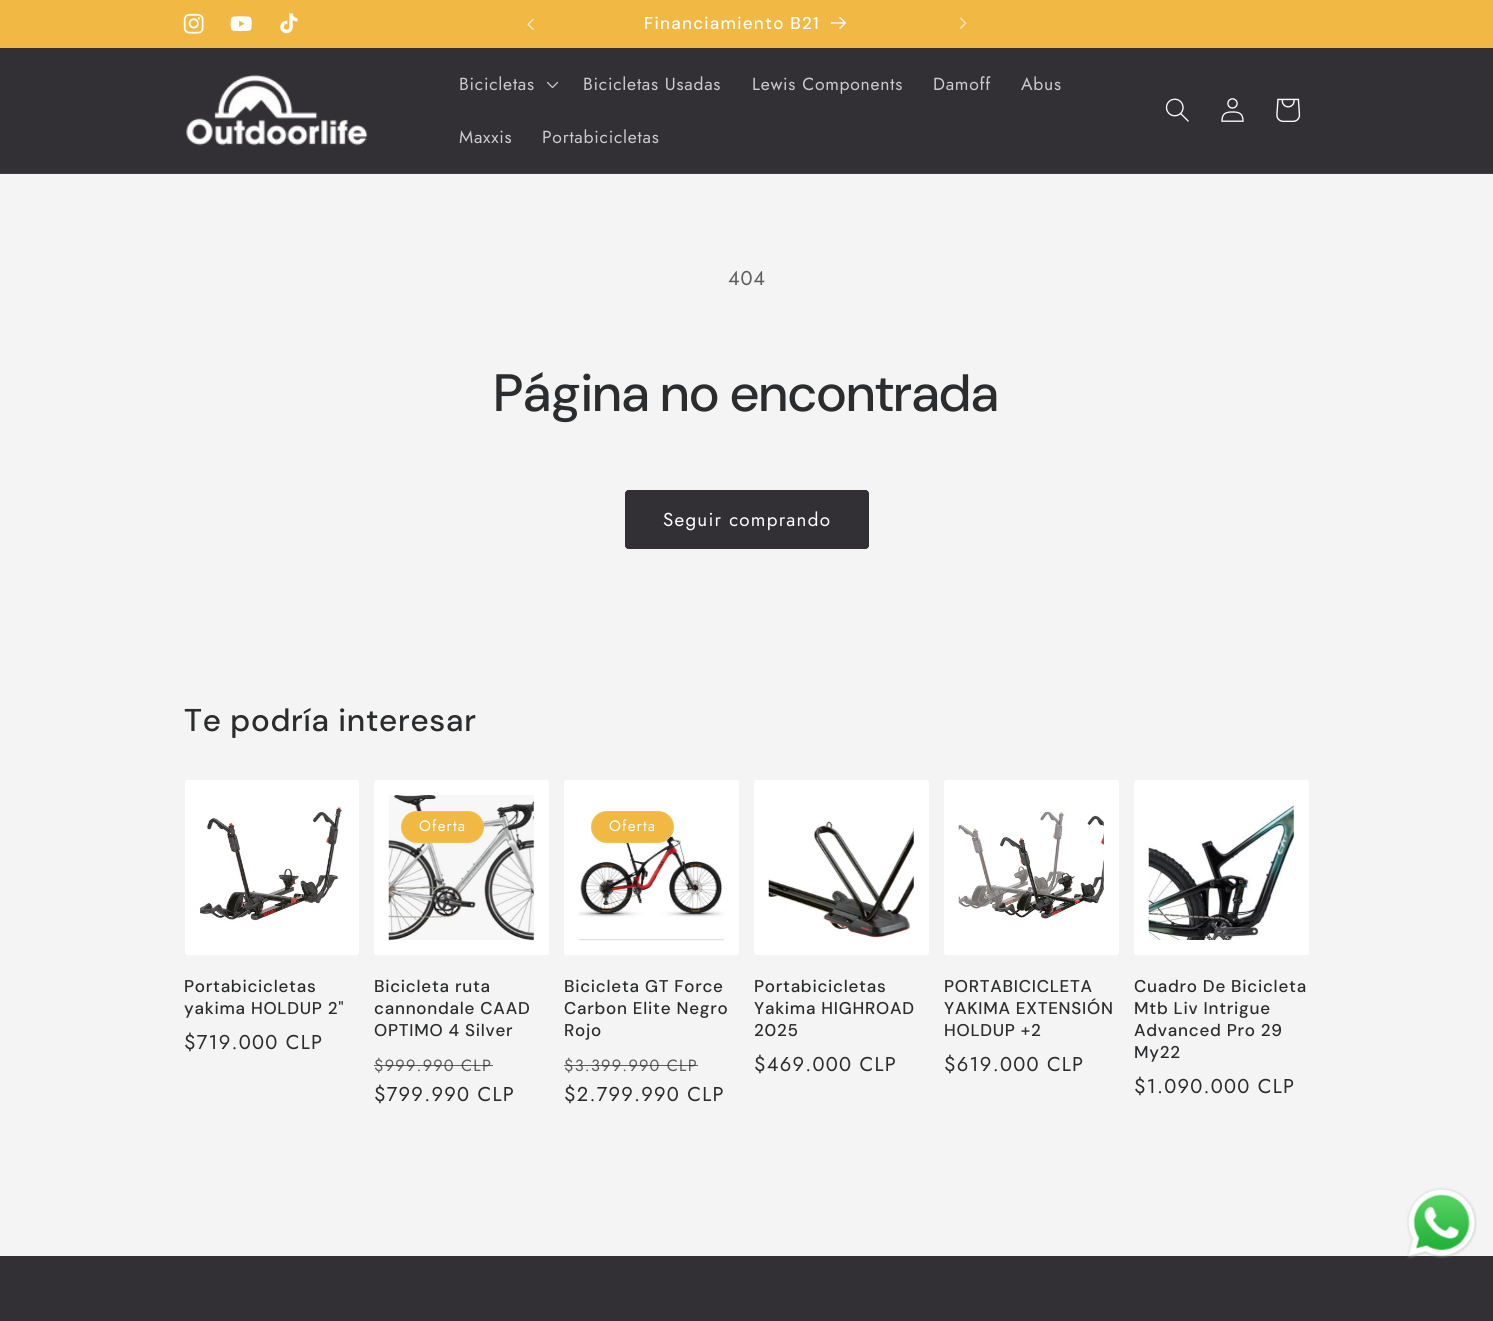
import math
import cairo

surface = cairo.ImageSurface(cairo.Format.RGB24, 1493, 1321)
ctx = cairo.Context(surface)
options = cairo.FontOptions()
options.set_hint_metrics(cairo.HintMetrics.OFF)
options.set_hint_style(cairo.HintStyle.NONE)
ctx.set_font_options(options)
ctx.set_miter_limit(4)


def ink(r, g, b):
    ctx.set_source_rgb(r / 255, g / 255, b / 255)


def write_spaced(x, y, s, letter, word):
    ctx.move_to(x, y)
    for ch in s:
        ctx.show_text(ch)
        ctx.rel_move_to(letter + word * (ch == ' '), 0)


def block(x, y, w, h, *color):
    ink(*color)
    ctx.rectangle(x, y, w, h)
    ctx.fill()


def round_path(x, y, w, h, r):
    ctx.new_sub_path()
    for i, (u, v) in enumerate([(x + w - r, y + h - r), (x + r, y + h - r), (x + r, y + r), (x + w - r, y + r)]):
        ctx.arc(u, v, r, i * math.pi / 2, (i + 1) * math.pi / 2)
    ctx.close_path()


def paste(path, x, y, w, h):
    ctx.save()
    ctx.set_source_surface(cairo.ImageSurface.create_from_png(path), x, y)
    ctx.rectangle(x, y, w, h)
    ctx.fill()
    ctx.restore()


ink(244, 244, 244)
ctx.paint()
block(0, 0, 1493, 48, 241, 185, 68)
paste("pic1.png", 183, 13, 21, 21)
paste("pic2.png", 230, 16, 22, 16)
paste("pic3.png", 280, 13, 18, 21)
paste("pic4.png", 527, 18, 7, 12)
ctx.select_font_face("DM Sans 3 Medium")
ctx.set_font_size(17)
ink(255, 255, 255)
write_spaced(644, 29, "Financiamiento B21", 1.25, 0)
paste("pic5.png", 831, 17, 15, 12)
paste("pic6.png", 960, 17, 7, 12)
block(0, 48, 1493, 125, 50, 47, 53)
block(0, 173, 1493, 1, 66, 64, 69)
paste("pic7.png", 186, 74, 182, 72)
ctx.select_font_face("Jost")
ctx.set_font_size(17.5)
ink(204, 203, 205)
write_spaced(459, 90, "Bicicletas", 0.75, 0)
paste("pic8.png", 546, 81, 13, 8)
write_spaced(583, 90, "Bicicletas Usadas", 0.75, 0)
write_spaced(752, 90, "Lewis Components", 0.75, 0)
write_spaced(933, 90, "Damoff", 0.75, 0)
write_spaced(1021, 90, "Abus", 0.75, 0)
write_spaced(459, 143, "Maxxis", 0.75, 0)
write_spaced(542, 143, "Portabicicletas", 0.75, 0)
paste("pic9.png", 1165, 98, 24, 24)
paste("pic10.png", 1221, 98, 23, 24)
paste("pic11.png", 1276, 98, 25, 24)
ctx.set_font_size(20)
ink(93, 94, 95)
write_spaced(728, 285, "404", 0.75, 0)
ctx.select_font_face("DM Sans Medium")
ctx.set_font_size(52.5)
ink(43, 44, 45)
write_spaced(494, 411, "Página no encontrada", 0.75, 0)
ink(50, 47, 53)
round_path(625, 490, 244, 59, 4)
ctx.fill()
round_path(625.5, 490.5, 243, 58, 3.5)
ctx.set_line_width(1)
ctx.stroke()
ctx.select_font_face("Jost")
ctx.set_font_size(18.75)
ink(255, 255, 255)
write_spaced(663, 526, "Seguir comprando", 1.25, 0)
ctx.select_font_face("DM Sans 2 Medium")
ctx.set_font_size(31.5)
ink(43, 44, 45)
write_spaced(184, 731, "Te podría interesar", 0.75, 0)
ink(255, 255, 255)
round_path(185, 780, 174, 175, 2.5)
ctx.fill()
paste("pic12.png", 200, 806, 143, 115)
ctx.select_font_face("DM Sans 3 Medium")
ctx.set_font_size(17)
ink(43, 44, 45)
write_spaced(184, 992, "Portabicicletas", 0.75, 0)
write_spaced(184, 1014, "yakima HOLDUP 2\"", 0.75, 0)
ctx.select_font_face("Jost")
ctx.set_font_size(20)
write_spaced(184, 1049, "$719.000 CLP", 1.25, 0)
ink(255, 255, 255)
round_path(374, 780, 175, 175, 2.5)
ctx.fill()
paste("pic13.png", 388, 795, 146, 146)
ink(241, 185, 68)
round_path(401, 811, 83, 32, 16)
ctx.fill()
round_path(401.5, 811.5, 82, 31, 15.5)
ctx.set_source_rgba(1, 1, 1, 0.1)
ctx.stroke()
ctx.set_font_size(15)
ink(255, 255, 255)
write_spaced(419, 831, "Oferta", 1.25, 0)
ctx.select_font_face("DM Sans 3 Medium")
ctx.set_font_size(17)
ink(43, 44, 45)
write_spaced(374, 992, "Bicicleta ruta", 0.75, 0)
write_spaced(374, 1014, "cannondale CAAD", 0.75, 0)
write_spaced(374, 1036, "OPTIMO 4 Silver", 0.75, 0)
ctx.select_font_face("Jost")
ctx.set_font_size(16.25)
ink(93, 94, 95)
write_spaced(374, 1071, "$999.990 CLP", 1.25, 0)
ctx.set_source_rgba(0.169, 0.173, 0.176, 0.75)
ctx.rectangle(374, 1065, 119, 1)
ctx.fill()
ctx.set_font_size(20)
ink(43, 44, 45)
write_spaced(374, 1101, "$799.990 CLP", 1.25, 0)
ink(255, 255, 255)
round_path(564, 780, 175, 175, 2.5)
ctx.fill()
paste("pic14.png", 578, 835, 146, 106)
ink(241, 185, 68)
round_path(591, 811, 83, 32, 16)
ctx.fill()
round_path(591.5, 811.5, 82, 31, 15.5)
ctx.set_source_rgba(1, 1, 1, 0.1)
ctx.stroke()
ctx.set_font_size(15)
ink(255, 255, 255)
write_spaced(609, 831, "Oferta", 1.25, 0)
ctx.select_font_face("DM Sans 3 Medium")
ctx.set_font_size(17)
ink(43, 44, 45)
write_spaced(564, 992, "Bicicleta GT Force", 0.75, 0)
write_spaced(564, 1014, "Carbon Elite Negro", 0.75, 0)
write_spaced(564, 1036, "Rojo", 0.75, 0)
ctx.select_font_face("Jost")
ctx.set_font_size(16.25)
ink(93, 94, 95)
write_spaced(564, 1071, "$3.399.990 CLP", 1.25, 0)
ctx.set_source_rgba(0.169, 0.173, 0.176, 0.75)
ctx.rectangle(564, 1065, 134, 1)
ctx.fill()
ctx.set_font_size(20)
ink(43, 44, 45)
write_spaced(564, 1101, "$2.799.990 CLP", 1.25, 0)
ink(255, 255, 255)
round_path(754, 780, 175, 175, 2.5)
ctx.fill()
paste("pic15.png", 768, 821, 146, 118)
ctx.select_font_face("DM Sans 3 Medium")
ctx.set_font_size(17)
ink(43, 44, 45)
write_spaced(754, 992, "Portabicicletas", 0.75, 0)
write_spaced(754, 1014, "Yakima HIGHROAD", 0.75, 0)
write_spaced(754, 1036, "2025", 0.75, 0)
ctx.select_font_face("Jost")
ctx.set_font_size(20)
write_spaced(754, 1071, "$469.000 CLP", 1.25, 0)
ink(255, 255, 255)
round_path(944, 780, 175, 175, 2.5)
ctx.fill()
paste("pic16.png", 958, 811, 146, 108)
ctx.select_font_face("DM Sans 3 Medium")
ctx.set_font_size(17)
ink(43, 44, 45)
write_spaced(944, 992, "PORTABICICLETA", 0.75, 0)
write_spaced(944, 1014, "YAKIMA EXTENSIÓN", 0.75, 0)
write_spaced(944, 1036, "HOLDUP +2", 0.75, 0)
ctx.select_font_face("Jost")
ctx.set_font_size(20)
write_spaced(944, 1071, "$619.000 CLP", 1.25, 0)
ink(255, 255, 255)
round_path(1134, 780, 175, 175, 2.5)
ctx.fill()
paste("pic17.png", 1148, 803, 146, 137)
ctx.select_font_face("DM Sans 3 Medium")
ctx.set_font_size(17)
ink(43, 44, 45)
write_spaced(1134, 992, "Cuadro De Bicicleta", 0.75, 0)
write_spaced(1134, 1014, "Mtb Liv Intrigue", 0.75, 0)
write_spaced(1134, 1036, "Advanced Pro 29", 0.75, 0)
write_spaced(1134, 1058, "My22", 0.75, 0)
ctx.select_font_face("Jost")
ctx.set_font_size(20)
write_spaced(1134, 1093, "$1.090.000 CLP", 1.25, 0)
block(0, 1256, 1493, 65, 50, 47, 53)
paste("pic18.png", 1407, 1187, 70, 72)
surface.write_to_png("screenshot.png")
